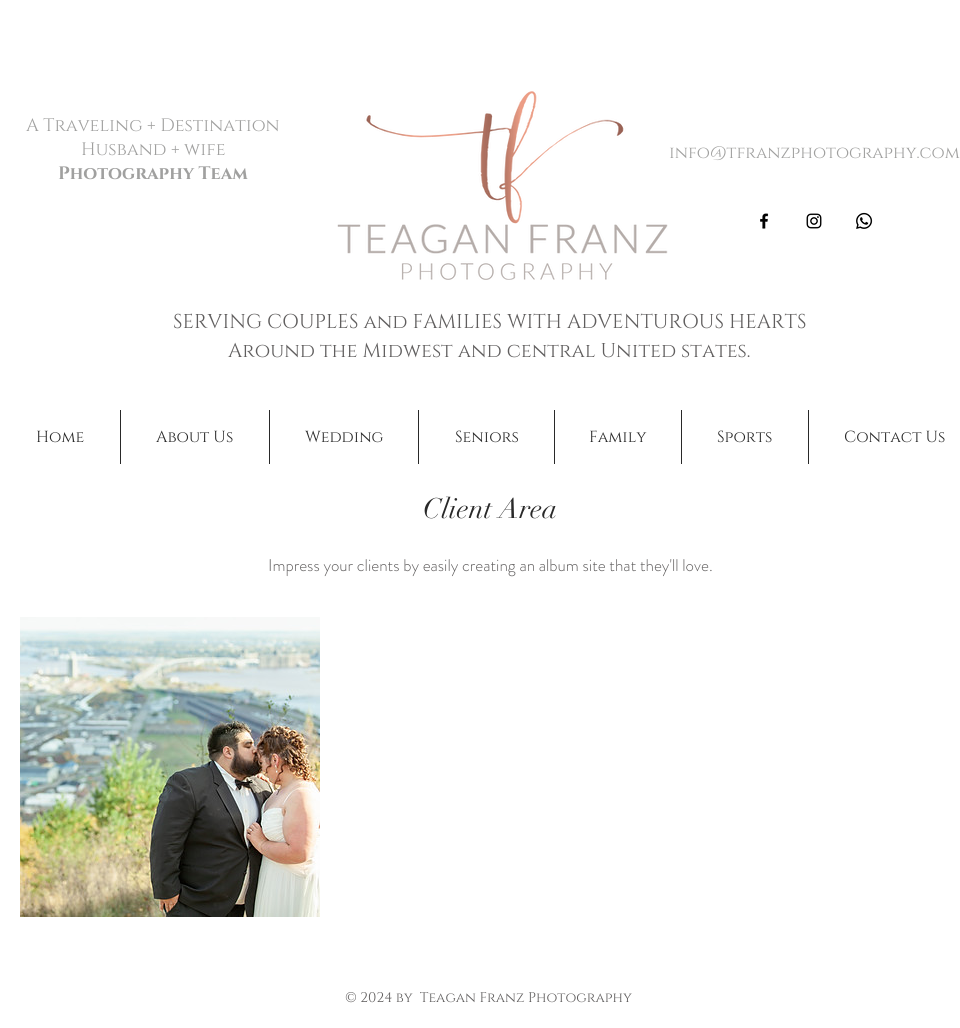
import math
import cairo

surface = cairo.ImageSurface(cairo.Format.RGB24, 960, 1028)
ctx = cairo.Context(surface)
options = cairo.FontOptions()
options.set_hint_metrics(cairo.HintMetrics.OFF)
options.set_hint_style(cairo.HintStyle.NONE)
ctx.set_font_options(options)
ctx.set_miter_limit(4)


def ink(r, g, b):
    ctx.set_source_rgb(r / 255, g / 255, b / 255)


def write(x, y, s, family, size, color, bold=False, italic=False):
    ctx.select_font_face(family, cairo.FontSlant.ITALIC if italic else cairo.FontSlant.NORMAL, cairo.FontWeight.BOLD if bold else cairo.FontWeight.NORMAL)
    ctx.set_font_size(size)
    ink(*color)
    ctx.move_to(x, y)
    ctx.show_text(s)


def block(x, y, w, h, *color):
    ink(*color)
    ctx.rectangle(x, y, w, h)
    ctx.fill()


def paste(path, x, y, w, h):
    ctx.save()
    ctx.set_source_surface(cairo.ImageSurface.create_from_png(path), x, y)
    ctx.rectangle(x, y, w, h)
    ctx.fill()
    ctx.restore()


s1 = dict(family="Cinzel", size=18, color=(160, 160, 159))
s2 = dict(family="Cinzel", size=18, color=(160, 160, 159), bold=True)
s3 = dict(family="Cinzel", size=17, color=(160, 160, 159))
s4 = dict(family="Cinzel", size=20, color=(96, 94, 94))
s5 = dict(family="Cinzel", size=16, color=(41, 41, 41))
s6 = dict(family="didot", size=28, color=(41, 41, 41))
s7 = dict(family="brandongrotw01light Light", size=17, color=(96, 94, 94))
s8 = dict(family="Cinzel", size=14, color=(96, 94, 94))

ink(255, 255, 255)
ctx.paint()
write(26, 131, "A Traveling + Destination", **s1)
write(81, 155, "Husband + wife", **s1)
write(58, 179, "Photography Team", **s2)
paste("pic1.png", 337, 91, 331, 189)
write(669, 158, "info@tfranzphotography.com", **s3)
paste("pic2.png", 760, 213, 9, 16)
paste("pic3.png", 806, 213, 16, 16)
paste("pic4.png", 856, 212, 17, 17)
write(173, 328, "SERVING COUPLES and FAMILIES WITH ADVENTUROUS HEARTS", **s4)
write(228, 357, "Around the Midwest and central United states.", **s4)
write(36, 442, "Home", **s5)
block(120, 410, 1, 54, 41, 41, 41)
write(156, 442, "About Us", **s5)
block(269, 410, 1, 54, 41, 41, 41)
write(305, 442, "Wedding", **s5)
block(418, 410, 1, 54, 41, 41, 41)
write(455, 442, "Seniors", **s5)
block(554, 410, 1, 54, 41, 41, 41)
write(589, 442, "Family", **s5)
block(681, 410, 1, 54, 41, 41, 41)
write(717, 442, "Sports", **s5)
block(808, 410, 1, 54, 41, 41, 41)
write(844, 442, "Contact Us", **s5)
write(423, 518, "Client Area", **s6)
write(268, 571, "Impress your clients by easily creating an album site that they'll love.", **s7)
paste("pic5.png", 20, 617, 300, 300)
write(345, 1002, "© 2024 by  Teagan Franz Photography", **s8)
surface.write_to_png("screenshot.png")
